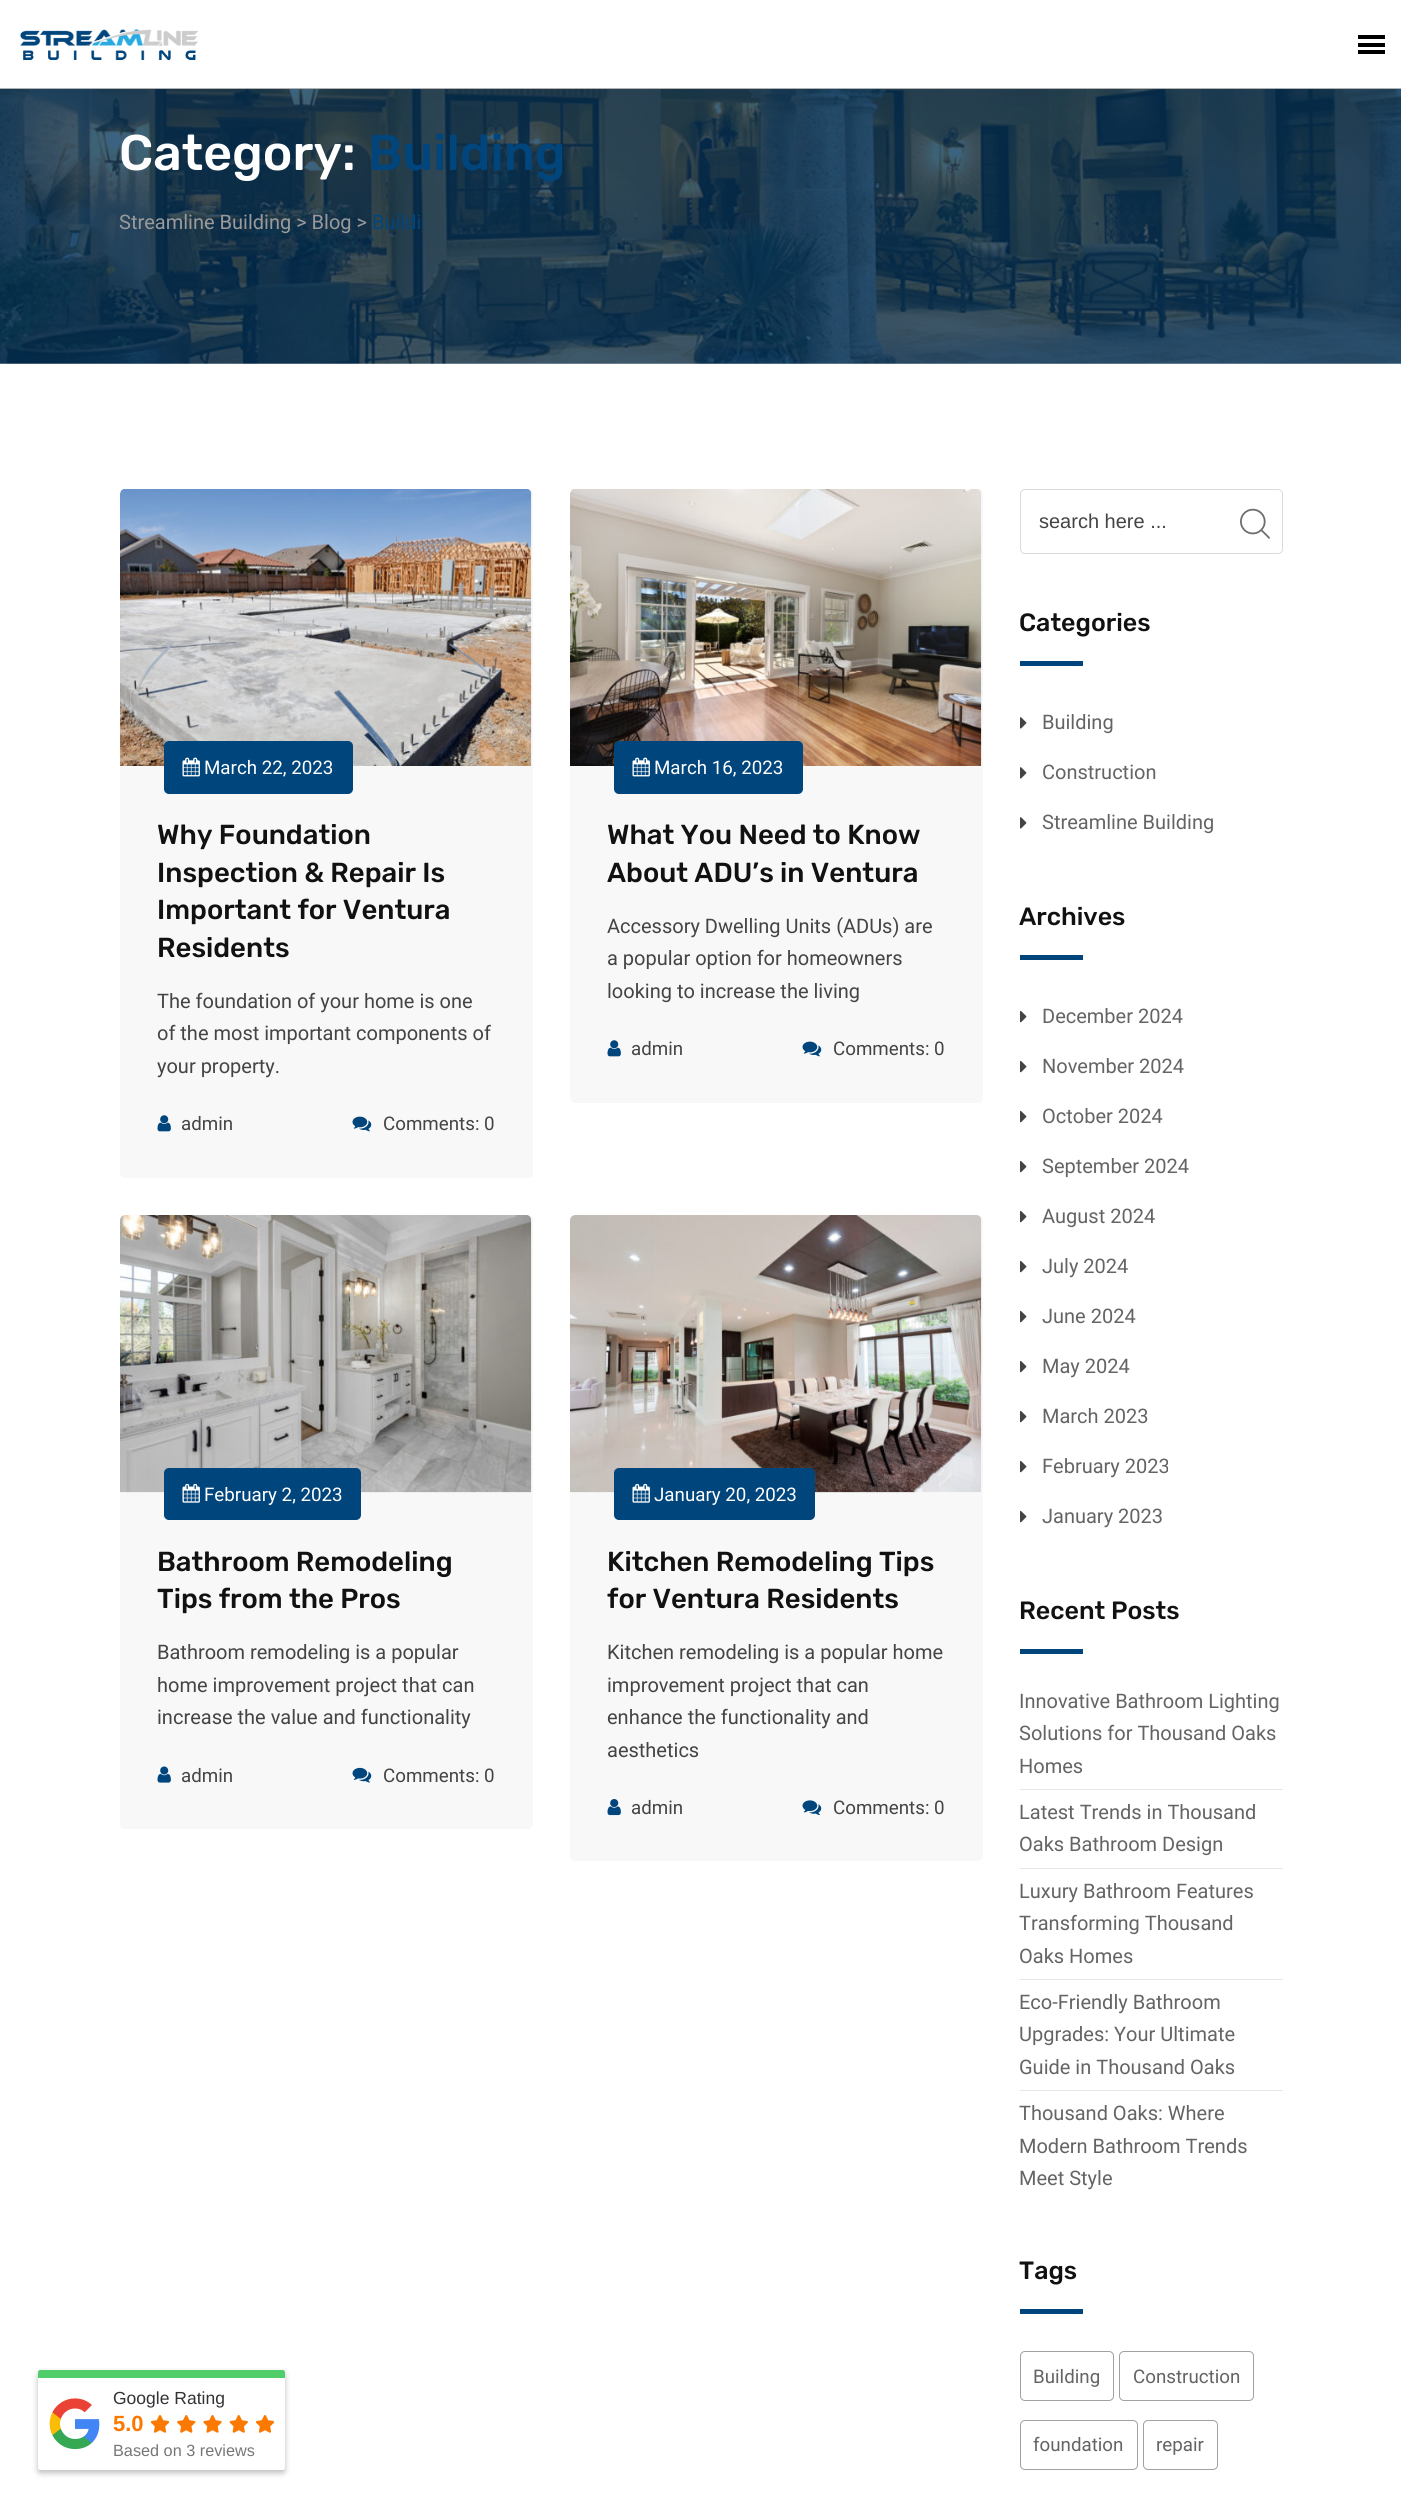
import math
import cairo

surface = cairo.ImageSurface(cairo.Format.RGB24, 1401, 2507)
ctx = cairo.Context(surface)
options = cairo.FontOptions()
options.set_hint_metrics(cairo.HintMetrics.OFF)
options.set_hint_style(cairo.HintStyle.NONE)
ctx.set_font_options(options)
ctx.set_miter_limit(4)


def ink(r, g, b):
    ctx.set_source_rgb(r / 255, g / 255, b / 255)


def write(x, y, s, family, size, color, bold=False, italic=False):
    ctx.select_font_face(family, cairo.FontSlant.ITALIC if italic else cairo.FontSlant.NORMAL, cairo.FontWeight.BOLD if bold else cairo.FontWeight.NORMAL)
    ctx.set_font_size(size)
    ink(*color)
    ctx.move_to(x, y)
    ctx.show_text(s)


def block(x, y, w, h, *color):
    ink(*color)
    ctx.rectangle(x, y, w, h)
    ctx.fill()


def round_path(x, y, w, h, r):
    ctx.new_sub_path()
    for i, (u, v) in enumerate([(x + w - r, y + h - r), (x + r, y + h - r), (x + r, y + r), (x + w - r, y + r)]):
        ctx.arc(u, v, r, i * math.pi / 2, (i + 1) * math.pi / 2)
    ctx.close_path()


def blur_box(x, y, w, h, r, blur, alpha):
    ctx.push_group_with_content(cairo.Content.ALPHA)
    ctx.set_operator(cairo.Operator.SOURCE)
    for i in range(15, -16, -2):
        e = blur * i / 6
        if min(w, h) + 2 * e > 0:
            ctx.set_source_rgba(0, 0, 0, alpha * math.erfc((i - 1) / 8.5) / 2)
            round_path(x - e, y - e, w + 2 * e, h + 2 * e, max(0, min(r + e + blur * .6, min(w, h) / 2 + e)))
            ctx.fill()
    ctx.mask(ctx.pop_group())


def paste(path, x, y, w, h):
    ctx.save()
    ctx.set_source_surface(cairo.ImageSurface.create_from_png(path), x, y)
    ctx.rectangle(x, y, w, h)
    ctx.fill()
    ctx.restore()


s1 = dict(family="Rubik Light", size=50, color=(255, 255, 255))
s2 = dict(family="Rubik Light", size=50, color=(0, 69, 124))
s3 = dict(family="Roboto", size=20, color=(155, 154, 154))
s4 = dict(family="Roboto", size=20, color=(0, 69, 124))
s5 = dict(family="Roboto", size=18.75, color=(255, 255, 255))
s6 = dict(family="Rubik Light", size=27.5, color=(17, 17, 17))
s7 = dict(family="Roboto", size=20, color=(68, 68, 68))
s8 = dict(family="Roboto", size=18.75, color=(68, 68, 68))
s9 = dict(family="Liberation Sans", size=20, color=(68, 68, 68))
s10 = dict(family="Rubik Light", size=25, color=(17, 17, 17))
s11 = dict(family="Roboto", size=20, color=(100, 100, 100))
s12 = dict(family="Roboto", size=18.75, color=(100, 100, 100))
s13 = dict(family="Liberation Sans", size=17.5, color=(51, 51, 51))
s14 = dict(family="Liberation Sans", size=22, color=(251, 121, 0), bold=True)
s15 = dict(family="Liberation Sans", size=16.25, color=(119, 119, 119))

ink(255, 255, 255)
ctx.paint()
block(0, 88, 1401, 1, 178, 178, 178)
paste("pic1.png", 20, 29, 178, 32)
block(1358, 35, 27, 4, 0, 0, 0)
block(1358, 43, 27, 4, 0, 0, 0)
block(1358, 50, 27, 4, 0, 0, 0)
paste("pic2.png", 0, 89, 1401, 275)
write(119, 170, "Category:", **s1)
write(368, 170, "Building", **s2)
write(119, 229, "Streamline Building > Blog >", **s3)
write(372, 229, "Buildi", **s4)
ink(248, 248, 248)
round_path(120, 489, 413, 689, 5)
ctx.fill()
paste("pic3.png", 120, 489, 412, 277)
ink(0, 69, 124)
round_path(164, 741, 189, 53, 5)
ctx.fill()
paste("pic4.png", 182, 757, 18, 20)
write(204, 774, "March 22, 2023", **s5)
write(157, 844, "Why Foundation", **s6)
write(157, 882, "Inspection & Repair Is", **s6)
write(157, 919, "Important for Ventura", **s6)
write(157, 957, "Residents", **s6)
write(157, 1008, "The foundation of your home is one", **s7)
write(157, 1040, "of the most important components of", **s7)
write(157, 1073, "your property.", **s7)
paste("pic5.png", 157, 1115, 14, 17)
write(181, 1130, "admin", **s8)
paste("pic6.png", 352, 1116, 20, 16)
write(383, 1130, "Comments: 0", **s8)
ink(248, 248, 248)
round_path(570, 489, 413, 614, 5)
ctx.fill()
paste("pic7.png", 570, 489, 412, 277)
ink(0, 69, 124)
round_path(614, 741, 189, 53, 5)
ctx.fill()
paste("pic4.png", 632, 757, 18, 20)
write(654, 774, "March 16, 2023", **s5)
write(607, 844, "What You Need to Know", **s6)
write(607, 882, "About ADU’s in Ventura", **s6)
write(607, 933, "Accessory Dwelling Units (ADUs) are", **s7)
write(607, 965, "a popular option for homeowners", **s7)
write(607, 998, "looking to increase the living", **s7)
paste("pic5.png", 607, 1040, 14, 17)
write(631, 1055, "admin", **s8)
paste("pic6.png", 802, 1041, 20, 16)
write(833, 1055, "Comments: 0", **s8)
ink(248, 248, 248)
round_path(120, 1215, 413, 614, 5)
ctx.fill()
paste("pic8.png", 120, 1215, 412, 278)
ink(0, 69, 124)
round_path(164, 1468, 197, 52, 5)
ctx.fill()
paste("pic9.png", 182, 1483, 18, 20)
write(204, 1501, "February 2, 2023", **s5)
write(157, 1571, "Bathroom Remodeling", **s6)
write(157, 1608, "Tips from the Pros", **s6)
write(157, 1659, "Bathroom remodeling is a popular", **s7)
write(157, 1692, "home improvement project that can", **s7)
write(157, 1724, "increase the value and functionality", **s7)
paste("pic10.png", 157, 1766, 14, 17)
write(181, 1782, "admin", **s8)
paste("pic11.png", 352, 1767, 20, 16)
write(383, 1782, "Comments: 0", **s8)
ink(248, 248, 248)
round_path(570, 1215, 413, 646, 5)
ctx.fill()
paste("pic12.png", 570, 1215, 412, 278)
ink(0, 69, 124)
round_path(614, 1468, 201, 52, 5)
ctx.fill()
paste("pic9.png", 632, 1483, 18, 20)
write(654, 1501, "January 20, 2023", **s5)
write(607, 1571, "Kitchen Remodeling Tips", **s6)
write(607, 1608, "for Ventura Residents", **s6)
write(607, 1659, "Kitchen remodeling is a popular home", **s7)
write(607, 1692, "improvement project that can", **s7)
write(607, 1724, "enhance the functionality and", **s7)
write(607, 1757, "aesthetics", **s7)
paste("pic13.png", 607, 1799, 14, 17)
write(631, 1814, "admin", **s8)
paste("pic14.png", 802, 1800, 20, 16)
write(833, 1814, "Comments: 0", **s8)
round_path(1020.5, 489.5, 262, 64, 4.5)
ink(218, 218, 218)
ctx.set_line_width(1)
ctx.stroke()
write(1039, 528, "search here ...", **s9)
paste("pic15.png", 1240, 508, 30, 31)
write(1019, 631, "Categories", **s10)
block(1020, 661, 63, 5, 0, 69, 124)
paste("pic16.png", 1020, 717, 7, 12)
write(1042, 729, "Building", **s11)
paste("pic16.png", 1020, 767, 7, 12)
write(1042, 779, "Construction", **s11)
paste("pic16.png", 1020, 817, 7, 12)
write(1042, 829, "Streamline Building", **s11)
write(1019, 925, "Archives", **s10)
block(1020, 955, 63, 5, 0, 69, 124)
paste("pic17.png", 1020, 1010, 7, 13)
write(1042, 1023, "December 2024", **s11)
paste("pic17.png", 1020, 1060, 7, 13)
write(1042, 1073, "November 2024", **s11)
paste("pic17.png", 1020, 1110, 7, 13)
write(1042, 1123, "October 2024", **s11)
paste("pic17.png", 1020, 1160, 7, 13)
write(1042, 1173, "September 2024", **s11)
paste("pic17.png", 1020, 1210, 7, 13)
write(1042, 1223, "August 2024", **s11)
paste("pic17.png", 1020, 1260, 7, 13)
write(1042, 1273, "July 2024", **s11)
paste("pic17.png", 1020, 1310, 7, 13)
write(1042, 1323, "June 2024", **s11)
paste("pic17.png", 1020, 1360, 7, 13)
write(1042, 1373, "May 2024", **s11)
paste("pic17.png", 1020, 1410, 7, 13)
write(1042, 1423, "March 2023", **s11)
paste("pic17.png", 1020, 1460, 7, 13)
write(1042, 1473, "February 2023", **s11)
paste("pic17.png", 1020, 1510, 7, 13)
write(1042, 1523, "January 2023", **s11)
write(1019, 1619, "Recent Posts", **s10)
block(1020, 1649, 63, 5, 0, 69, 124)
block(1020, 1789, 263, 1, 231, 231, 231)
write(1019, 1708, "Innovative Bathroom Lighting", **s11)
write(1019, 1740, "Solutions for Thousand Oaks", **s11)
write(1019, 1773, "Homes", **s11)
block(1020, 1868, 263, 1, 231, 231, 231)
write(1019, 1819, "Latest Trends in Thousand", **s11)
write(1019, 1851, "Oaks Bathroom Design", **s11)
block(1020, 1979, 263, 1, 231, 231, 231)
write(1019, 1898, "Luxury Bathroom Features", **s11)
write(1019, 1930, "Transforming Thousand", **s11)
write(1019, 1963, "Oaks Homes", **s11)
block(1020, 2090, 263, 1, 231, 231, 231)
write(1019, 2009, "Eco-Friendly Bathroom", **s11)
write(1019, 2041, "Upgrades: Your Ultimate", **s11)
write(1019, 2074, "Guide in Thousand Oaks", **s11)
write(1019, 2120, "Thousand Oaks: Where", **s11)
write(1019, 2153, "Modern Bathroom Trends", **s11)
write(1019, 2185, "Meet Style", **s11)
write(1019, 2279, "Tags", **s10)
block(1020, 2309, 63, 5, 0, 69, 124)
round_path(1020.5, 2351.5, 93, 49, 4.5)
ink(161, 161, 161)
ctx.stroke()
write(1033, 2383, "Building", **s12)
round_path(1119.5, 2351.5, 134, 49, 4.5)
ink(161, 161, 161)
ctx.stroke()
write(1133, 2383, "Construction", **s12)
round_path(1020.5, 2420.5, 117, 49, 4.5)
ink(161, 161, 161)
ctx.stroke()
write(1033, 2451, "foundation", **s12)
round_path(1143.5, 2420.5, 74, 49, 4.5)
ink(161, 161, 161)
ctx.stroke()
write(1156, 2451, "repair", **s12)
ink(0, 0, 0)
blur_box(38, 2373, 247, 100, 2.5, 3, 0.26)
ink(79, 206, 106)
ctx.new_path()
ctx.move_to(40.5, 2370)
ctx.line_to(282.5, 2370)
ctx.curve_to(284, 2370, 285, 2371, 285, 2372.5)
ctx.line_to(285, 2378)
ctx.line_to(38, 2378)
ctx.line_to(38, 2372.5)
ctx.curve_to(38, 2371, 39, 2370, 40.5, 2370)
ctx.close_path()
ctx.fill()
ink(255, 255, 255)
ctx.new_path()
ctx.move_to(38, 2378)
ctx.line_to(285, 2378)
ctx.line_to(285, 2467.5)
ctx.curve_to(285, 2469, 284, 2470, 282.5, 2470)
ctx.line_to(40.5, 2470)
ctx.curve_to(39, 2470, 38, 2469, 38, 2467.5)
ctx.close_path()
ctx.fill()
paste("pic18.png", 49, 2398, 51, 52)
write(113, 2404, "Google Rating", **s13)
write(113, 2431, "5.0", **s14)
paste("pic19.png", 150, 2415, 20, 18)
paste("pic20.png", 177, 2415, 19, 18)
paste("pic21.png", 203, 2415, 19, 18)
paste("pic22.png", 229, 2415, 19, 18)
paste("pic19.png", 255, 2415, 20, 18)
write(113, 2456, "Based on 3 reviews", **s15)
surface.write_to_png("screenshot.png")
